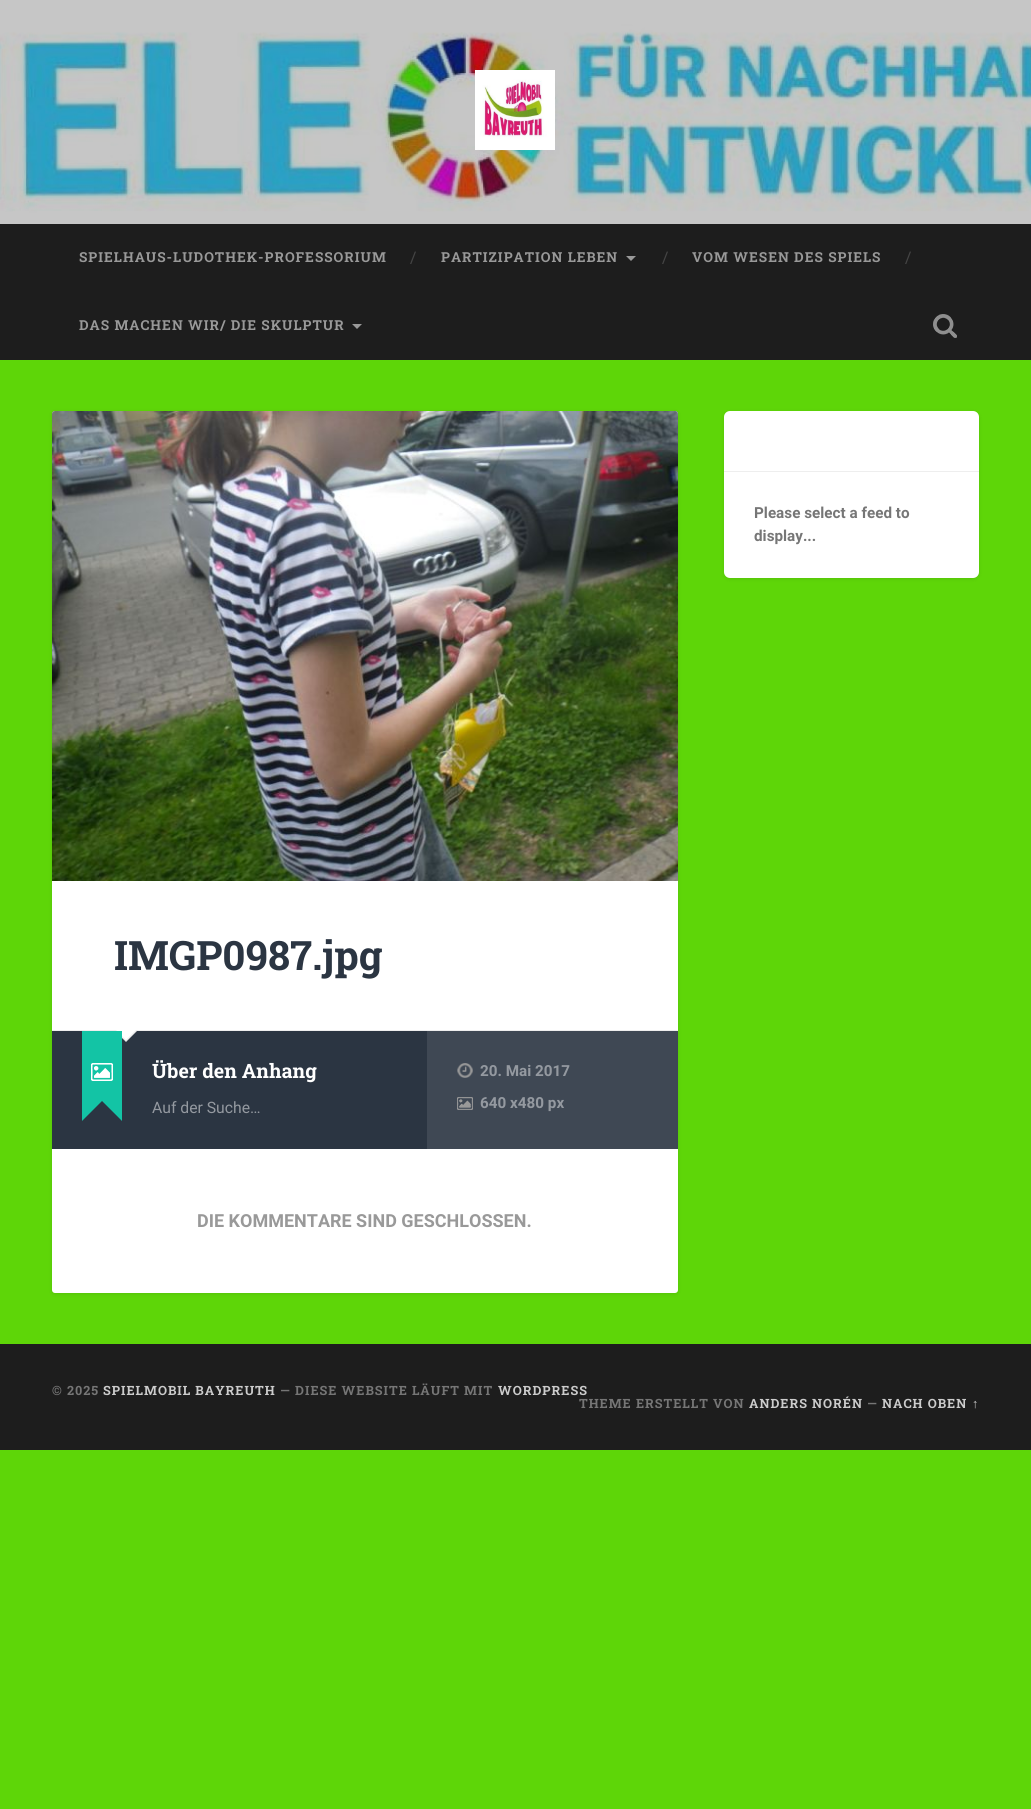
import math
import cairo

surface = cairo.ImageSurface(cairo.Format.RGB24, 1031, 1809)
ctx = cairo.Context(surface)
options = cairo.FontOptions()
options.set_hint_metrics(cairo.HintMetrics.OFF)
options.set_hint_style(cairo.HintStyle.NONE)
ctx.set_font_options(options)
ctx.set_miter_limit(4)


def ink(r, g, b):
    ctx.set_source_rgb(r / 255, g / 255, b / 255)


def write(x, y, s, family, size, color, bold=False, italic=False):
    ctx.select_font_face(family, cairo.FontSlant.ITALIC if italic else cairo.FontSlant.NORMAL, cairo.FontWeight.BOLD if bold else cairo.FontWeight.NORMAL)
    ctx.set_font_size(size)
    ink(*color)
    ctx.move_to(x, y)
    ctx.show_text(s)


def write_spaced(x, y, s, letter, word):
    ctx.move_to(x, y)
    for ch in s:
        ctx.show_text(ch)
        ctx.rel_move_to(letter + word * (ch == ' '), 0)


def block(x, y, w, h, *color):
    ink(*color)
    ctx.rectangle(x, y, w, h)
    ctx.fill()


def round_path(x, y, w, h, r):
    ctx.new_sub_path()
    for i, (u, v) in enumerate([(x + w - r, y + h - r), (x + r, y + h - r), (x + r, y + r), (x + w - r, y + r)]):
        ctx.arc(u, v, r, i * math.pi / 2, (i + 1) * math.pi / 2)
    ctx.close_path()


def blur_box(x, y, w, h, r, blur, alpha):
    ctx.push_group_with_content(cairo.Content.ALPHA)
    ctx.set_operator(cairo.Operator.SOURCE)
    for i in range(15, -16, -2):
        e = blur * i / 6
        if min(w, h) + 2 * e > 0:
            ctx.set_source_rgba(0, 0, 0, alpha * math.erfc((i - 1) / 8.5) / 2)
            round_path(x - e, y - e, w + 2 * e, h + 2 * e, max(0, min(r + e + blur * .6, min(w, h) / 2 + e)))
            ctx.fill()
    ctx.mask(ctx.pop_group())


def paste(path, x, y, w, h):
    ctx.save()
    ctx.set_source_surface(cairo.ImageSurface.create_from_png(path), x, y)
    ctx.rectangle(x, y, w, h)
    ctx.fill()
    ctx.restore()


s1 = dict(family="Roboto Slab", size=16, color=(68, 68, 68))
s2 = dict(family="Roboto", size=15.25, color=(118, 118, 118), bold=True)
s3 = dict(family="Roboto Slab", size=40.5, color=(43, 53, 66), bold=True)
s4 = dict(family="Roboto Slab", size=19.75, color=(255, 255, 255), bold=True)
s5 = dict(family="Roboto", size=15.75, color=(148, 153, 160))
s6 = dict(family="Roboto", size=15.25, color=(148, 153, 160), bold=True)
s7 = dict(family="Roboto", size=18, color=(153, 153, 153), bold=True)

ink(94, 214, 8)
ctx.paint()
paste("pic1.png", 0, 0, 1031, 224)
paste("pic2.png", 475, 70, 80, 80)
block(0, 224, 1031, 136, 29, 29, 29)
ctx.select_font_face("Roboto Slab", cairo.FontSlant.NORMAL, cairo.FontWeight.BOLD)
ctx.set_font_size(13.75)
ink(153, 153, 153)
write_spaced(79, 262, "SPIELHAUS-LUDOTHEK-PROFESSORIUM", 1, 0)
write(410, 263, "/", **s1)
ctx.select_font_face("Roboto Slab", cairo.FontSlant.NORMAL, cairo.FontWeight.BOLD)
ctx.set_font_size(13.75)
ink(153, 153, 153)
write_spaced(441, 262, "PARTIZIPATION LEBEN", 1, 0)
ctx.new_path()
ctx.move_to(626, 256)
ctx.line_to(636, 256)
ctx.line_to(631, 261)
ctx.close_path()
ctx.fill()
write(662, 263, "/", **s1)
ctx.select_font_face("Roboto Slab", cairo.FontSlant.NORMAL, cairo.FontWeight.BOLD)
ctx.set_font_size(13.75)
ink(153, 153, 153)
write_spaced(692, 262, "VOM WESEN DES SPIELS", 1, 0)
write(905, 263, "/", **s1)
ctx.select_font_face("Roboto Slab", cairo.FontSlant.NORMAL, cairo.FontWeight.BOLD)
ctx.set_font_size(13.75)
ink(153, 153, 153)
write_spaced(79, 330, "DAS MACHEN WIR/ DIE SKULPTUR", 1, 0)
ctx.new_path()
ctx.move_to(352, 324)
ctx.line_to(362, 324)
ctx.line_to(357, 329)
ctx.close_path()
ctx.fill()
paste("pic3.png", 933, 314, 24, 24)
ink(0, 0, 0)
blur_box(724, 412, 255, 167, 6, 2, 0.1)
ink(255, 255, 255)
round_path(724, 411, 255, 167, 6)
ctx.fill()
block(724, 471, 255, 1, 238, 238, 238)
write(754, 518, "Please select a feed to", **s2)
write(754, 541, "display...", **s2)
ink(0, 0, 0)
blur_box(52, 412, 626, 882, 3, 2, 0.1)
ink(255, 255, 255)
round_path(52, 411, 626, 882, 3)
ctx.fill()
paste("pic4.png", 52, 411, 626, 470)
block(52, 1030, 626, 1, 238, 238, 238)
write(114, 970, "IMGP0987.jpg", **s3)
block(52, 1031, 375, 118, 43, 53, 66)
ink(238, 238, 238)
ctx.new_path()
ctx.move_to(114, 1030)
ctx.line_to(138, 1030)
ctx.line_to(126, 1042)
ctx.close_path()
ctx.fill()
ink(255, 255, 255)
ctx.new_path()
ctx.move_to(115, 1029)
ctx.line_to(137, 1029)
ctx.line_to(126, 1040)
ctx.close_path()
ctx.fill()
ink(19, 196, 165)
ctx.new_path()
ctx.move_to(122, 1081)
ctx.line_to(122, 1121)
ctx.line_to(102, 1101)
ctx.close_path()
ctx.move_to(82, 1121)
ctx.line_to(82, 1081)
ctx.line_to(102, 1101)
ctx.close_path()
ctx.fill()
block(82, 1031, 40, 70, 19, 196, 165)
paste("pic5.png", 91, 1063, 22, 18)
write(152, 1078, "Über den Anhang", **s4)
write(152, 1113, "Auf der Suche…", **s5)
block(427, 1031, 251, 118, 63, 72, 84)
paste("pic6.png", 457, 1063, 16, 15)
write(480, 1076, "20. Mai 2017", **s6)
paste("pic7.png", 457, 1097, 16, 13)
write(480, 1108, "640 x480 px", **s6)
write(197, 1227, "DIE KOMMENTARE SIND GESCHLOSSEN.", **s7)
block(0, 1344, 1031, 106, 29, 29, 29)
ctx.select_font_face("Roboto Slab", cairo.FontSlant.NORMAL, cairo.FontWeight.BOLD)
ctx.set_font_size(12.75)
ink(118, 118, 118)
write_spaced(52, 1395, "© 2025", 1, 0)
ink(204, 204, 204)
write_spaced(103, 1395, "SPIELMOBIL BAYREUTH", 1, 0)
ink(118, 118, 118)
write_spaced(280, 1395, "— DIESE WEBSITE LÄUFT MIT", 1, 0)
ink(204, 204, 204)
write_spaced(498, 1395, "WORDPRESS", 1, 0)
ink(118, 118, 118)
write_spaced(579, 1408, "THEME ERSTELLT VON", 1, 0)
ink(204, 204, 204)
write_spaced(749, 1408, "ANDERS NORÉN", 1, 0)
ink(118, 118, 118)
write_spaced(867, 1408, "—", 1, 0)
ink(204, 204, 204)
write_spaced(882, 1408, "NACH OBEN", 1, 0)
ctx.select_font_face("Liberation Sans", cairo.FontSlant.NORMAL, cairo.FontWeight.BOLD)
write_spaced(972, 1408, "↑", 1, 0)
surface.write_to_png("screenshot.png")
